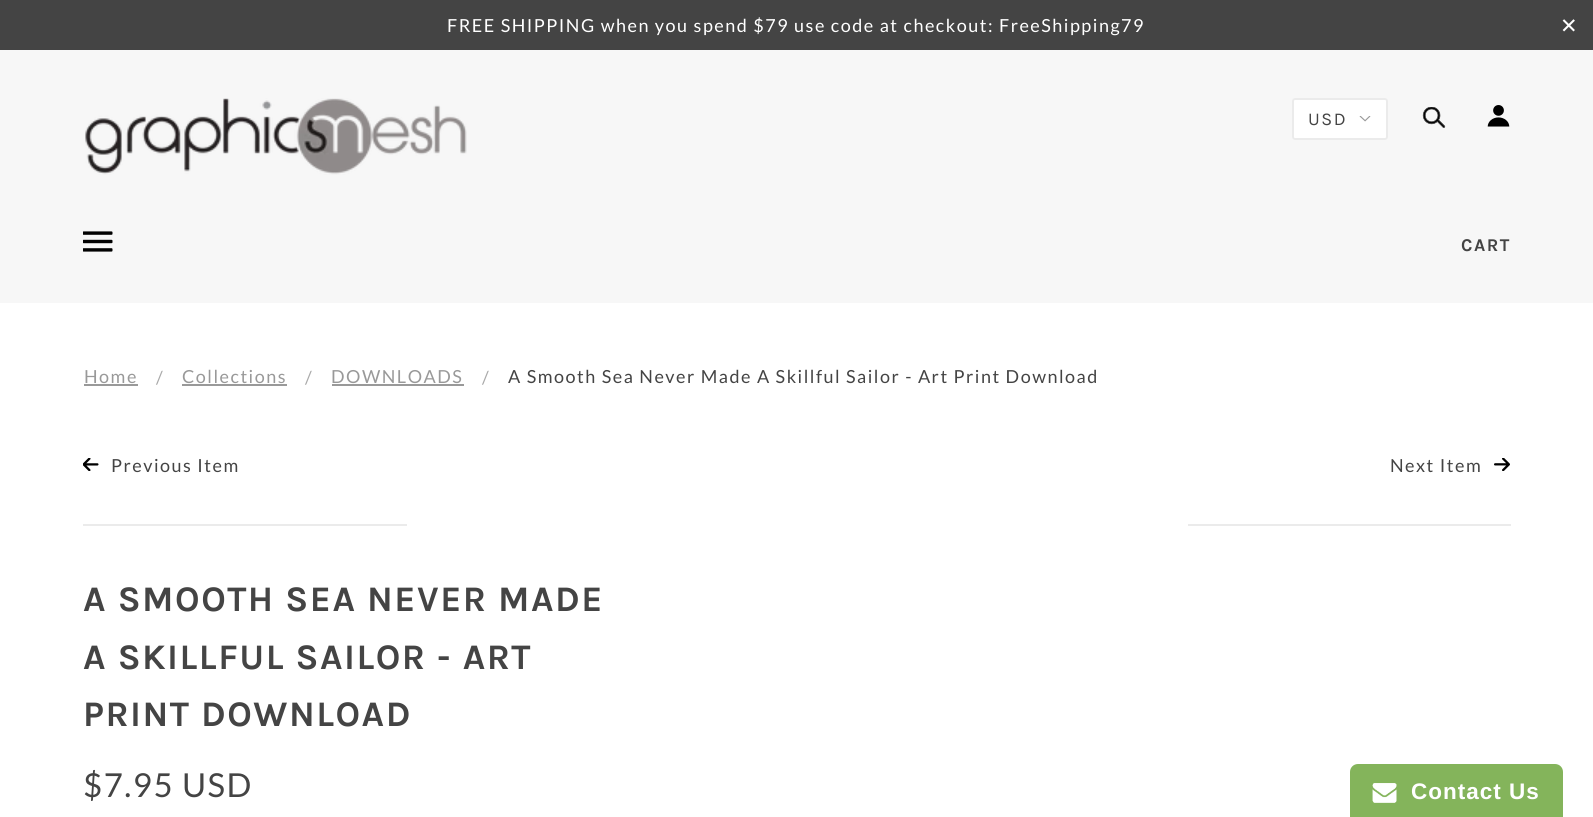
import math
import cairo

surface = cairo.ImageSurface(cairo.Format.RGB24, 1593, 817)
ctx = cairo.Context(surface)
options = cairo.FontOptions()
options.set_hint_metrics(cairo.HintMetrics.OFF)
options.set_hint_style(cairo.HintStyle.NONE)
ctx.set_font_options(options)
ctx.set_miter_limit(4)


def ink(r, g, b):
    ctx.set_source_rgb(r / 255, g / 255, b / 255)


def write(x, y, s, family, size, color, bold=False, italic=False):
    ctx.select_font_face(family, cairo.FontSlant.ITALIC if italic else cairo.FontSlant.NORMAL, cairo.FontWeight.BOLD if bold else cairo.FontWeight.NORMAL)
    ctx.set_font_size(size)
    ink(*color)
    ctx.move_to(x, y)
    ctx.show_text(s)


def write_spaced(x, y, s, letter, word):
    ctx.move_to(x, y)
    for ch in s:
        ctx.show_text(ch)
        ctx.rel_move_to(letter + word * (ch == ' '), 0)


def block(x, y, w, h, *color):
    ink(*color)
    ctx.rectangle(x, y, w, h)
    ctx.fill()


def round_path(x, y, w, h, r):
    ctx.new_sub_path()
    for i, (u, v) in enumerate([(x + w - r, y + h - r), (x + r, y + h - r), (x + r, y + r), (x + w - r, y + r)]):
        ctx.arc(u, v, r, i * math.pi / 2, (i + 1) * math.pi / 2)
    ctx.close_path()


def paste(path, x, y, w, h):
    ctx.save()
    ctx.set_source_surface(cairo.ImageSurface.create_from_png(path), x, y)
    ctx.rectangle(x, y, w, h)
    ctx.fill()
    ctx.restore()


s1 = dict(family="DejaVu Sans", size=21, color=(255, 255, 255))

ink(255, 255, 255)
ctx.paint()
block(0, 0, 1593, 50, 68, 68, 68)
ctx.select_font_face("Lato")
ctx.set_font_size(18)
ink(255, 255, 255)
write_spaced(447, 32, "FREE SHIPPING when you spend $79 use code at checkout: FreeShipping79", 1.5, 0)
write(1560, 33, "✕", **s1)
block(0, 50, 1593, 253, 247, 247, 247)
paste("pic1.png", 85, 98, 382, 77)
ink(255, 255, 255)
round_path(1292, 98, 96, 42, 3)
ctx.fill()
paste("pic2.png", 1359, 116, 12, 6)
round_path(1293, 99, 94, 40, 2)
ink(235, 235, 235)
ctx.stroke()
ctx.select_font_face("Karla")
ctx.set_font_size(18)
ink(68, 68, 68)
write_spaced(1308, 125, "USD", 1.5, 0)
paste("pic3.png", 1422, 107, 24, 21)
paste("pic4.png", 1487, 105, 23, 22)
paste("pic5.png", 83, 231, 30, 21)
ctx.select_font_face("Karla", cairo.FontSlant.NORMAL, cairo.FontWeight.BOLD)
write_spaced(1461, 251, "CART", 1.5, 0)
ctx.select_font_face("Lato")
ink(153, 153, 153)
write_spaced(84, 383, "Home", 1.5, 0)
block(84, 384, 54, 2, 153, 153, 153)
ink(170, 170, 170)
write_spaced(156, 384, "/", 1.5, 0)
ink(153, 153, 153)
write_spaced(182, 383, "Collections", 1.5, 0)
block(182, 384, 105, 2, 153, 153, 153)
ink(170, 170, 170)
write_spaced(305, 384, "/", 1.5, 0)
ink(153, 153, 153)
write_spaced(331, 383, "DOWNLOADS", 1.5, 0)
block(332, 384, 132, 2, 153, 153, 153)
ink(170, 170, 170)
write_spaced(482, 384, "/", 1.5, 0)
ink(68, 68, 68)
write_spaced(508, 383, "A Smooth Sea Never Made A Skillful Sailor - Art Print Download", 1.5, 0)
paste("pic6.png", 83, 458, 16, 13)
write_spaced(111, 472, "Previous Item", 1.5, 0)
block(83, 524, 324, 2, 235, 235, 235)
ink(68, 68, 68)
write_spaced(1390, 472, "Next Item", 1.5, 0)
paste("pic7.png", 1494, 458, 16, 13)
block(1188, 524, 323, 2, 235, 235, 235)
ctx.select_font_face("Karla", cairo.FontSlant.NORMAL, cairo.FontWeight.BOLD)
ctx.set_font_size(36)
ink(68, 68, 68)
write_spaced(83, 611, "A SMOOTH SEA NEVER MADE", 1.5, 0)
write_spaced(83, 669, "A SKILLFUL SAILOR - ART", 1.5, 0)
write_spaced(83, 726, "PRINT DOWNLOAD", 1.5, 0)
ctx.select_font_face("Lato")
ctx.set_font_size(33)
write_spaced(83, 797, "$7.95 USD", 1.5, 0)
ink(132, 180, 91)
ctx.new_path()
ctx.move_to(1358, 764)
ctx.line_to(1555, 764)
ctx.curve_to(1559.5, 764, 1563, 767.5, 1563, 772)
ctx.line_to(1563, 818)
ctx.line_to(1350, 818)
ctx.line_to(1350, 772)
ctx.curve_to(1350, 767.5, 1353.5, 764, 1358, 764)
ctx.close_path()
ctx.fill()
paste("pic8.png", 1372, 783, 25, 20)
ctx.select_font_face("Liberation Sans", cairo.FontSlant.NORMAL, cairo.FontWeight.BOLD)
ctx.set_font_size(22.5)
ink(255, 255, 255)
write_spaced(1411, 799, "Contact Us", 1, 0)
surface.write_to_png("screenshot.png")
